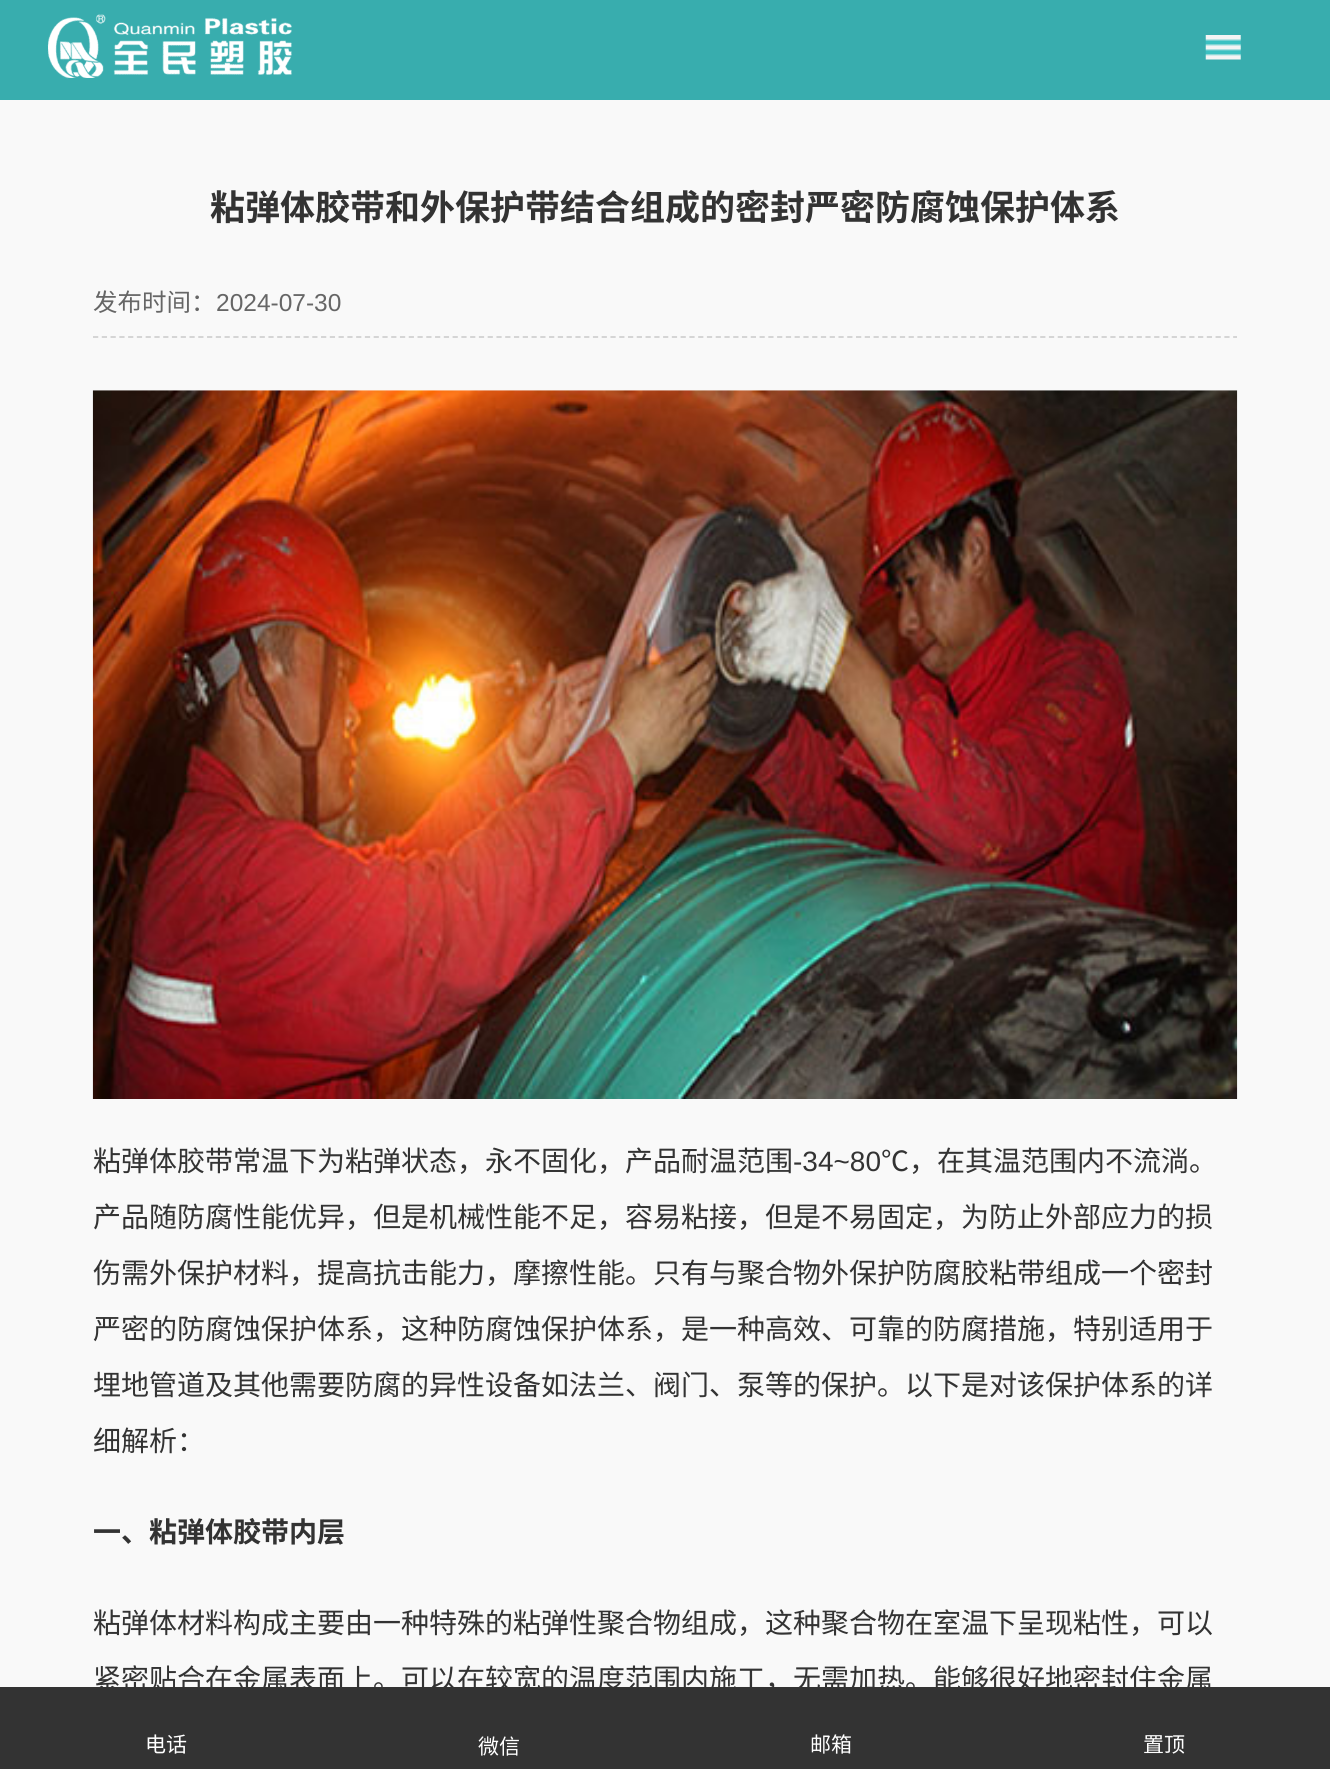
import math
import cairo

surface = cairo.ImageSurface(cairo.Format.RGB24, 1330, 1769)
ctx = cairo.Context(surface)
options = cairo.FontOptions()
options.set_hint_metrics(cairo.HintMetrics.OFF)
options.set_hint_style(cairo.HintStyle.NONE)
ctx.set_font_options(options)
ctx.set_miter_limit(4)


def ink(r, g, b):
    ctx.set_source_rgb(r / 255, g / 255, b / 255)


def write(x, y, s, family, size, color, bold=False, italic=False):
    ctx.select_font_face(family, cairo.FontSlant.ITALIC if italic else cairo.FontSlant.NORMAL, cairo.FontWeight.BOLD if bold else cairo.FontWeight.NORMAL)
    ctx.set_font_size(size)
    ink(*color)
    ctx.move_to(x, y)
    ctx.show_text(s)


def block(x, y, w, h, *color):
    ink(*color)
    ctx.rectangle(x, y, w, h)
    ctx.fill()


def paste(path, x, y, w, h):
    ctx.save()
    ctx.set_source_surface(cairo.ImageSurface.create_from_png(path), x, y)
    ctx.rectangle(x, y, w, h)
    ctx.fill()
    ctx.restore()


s1 = dict(family="Noto Sans SC", size=35, color=(51, 51, 51), bold=True)
s2 = dict(family="Noto Sans CJK SC", size=24.5, color=(102, 102, 102))
s3 = dict(family="Liberation Sans", size=24.5, color=(102, 102, 102))
s4 = dict(family="Noto Sans CJK SC", size=28, color=(51, 51, 51))
s5 = dict(family="Liberation Sans", size=28, color=(51, 51, 51))
s6 = dict(family="Noto Sans SC", size=28, color=(51, 51, 51), bold=True)
s7 = dict(family="Noto Sans CJK SC", size=21, color=(255, 255, 255))

ink(249, 249, 249)
ctx.paint()
block(0, 0, 1330, 100, 56, 173, 174)
paste("pic1.png", 47, 14, 245, 65)
paste("pic2.png", 1205, 35, 36, 25)
write(210, 220, "粘弹体胶带和外保护带结合组成的密封严密防腐蚀保护体系", **s1)
ctx.new_path()
ctx.move_to(93, 337)
ctx.line_to(1237, 337)
ink(210, 210, 210)
ctx.set_line_width(1.8)
ctx.set_dash([5.25, 3.52])
ctx.stroke()
write(93, 311, "发布时间：", **s2)
write(216, 311, "2024-07-30", **s3)
paste("pic3.png", 92, 390, 1146, 709)
write(93, 1171, "粘弹体胶带常温下为粘弹状态，永不固化，产品耐温范围", **s4)
write(793, 1171, "-34~80", **s5)
write(881, 1171, "℃，在其温范围内不流淌。", **s4)
write(93, 1227, "产品随防腐性能优异，但是机械性能不足，容易粘接，但是不易固定，为防止外部应力的损", **s4)
write(93, 1283, "伤需外保护材料，提高抗击能力，摩擦性能。只有与聚合物外保护防腐胶粘带组成一个密封", **s4)
write(93, 1339, "严密的防腐蚀保护体系，这种防腐蚀保护体系，是一种高效、可靠的防腐措施，特别适用于", **s4)
write(93, 1395, "埋地管道及其他需要防腐的异性设备如法兰、阀门、泵等的保护。以下是对该保护体系的详", **s4)
write(93, 1451, "细解析：", **s4)
write(93, 1542, "一、粘弹体胶带内层", **s6)
write(93, 1633, "粘弹体材料构成主要由一种特殊的粘弹性聚合物组成，这种聚合物在室温下呈现粘性，可以", **s4)
write(93, 1689, "紧密贴合在金属表面上。可以在较宽的温度范围内施工，无需加热。能够很好地密封住金属", **s4)
block(0, 1687, 1330, 82, 51, 51, 51)
write(145, 1752, "电话", **s7)
write(478, 1754, "微信", **s7)
write(810, 1752, "邮箱", **s7)
write(1143, 1752, "置顶", **s7)
surface.write_to_png("screenshot.png")
